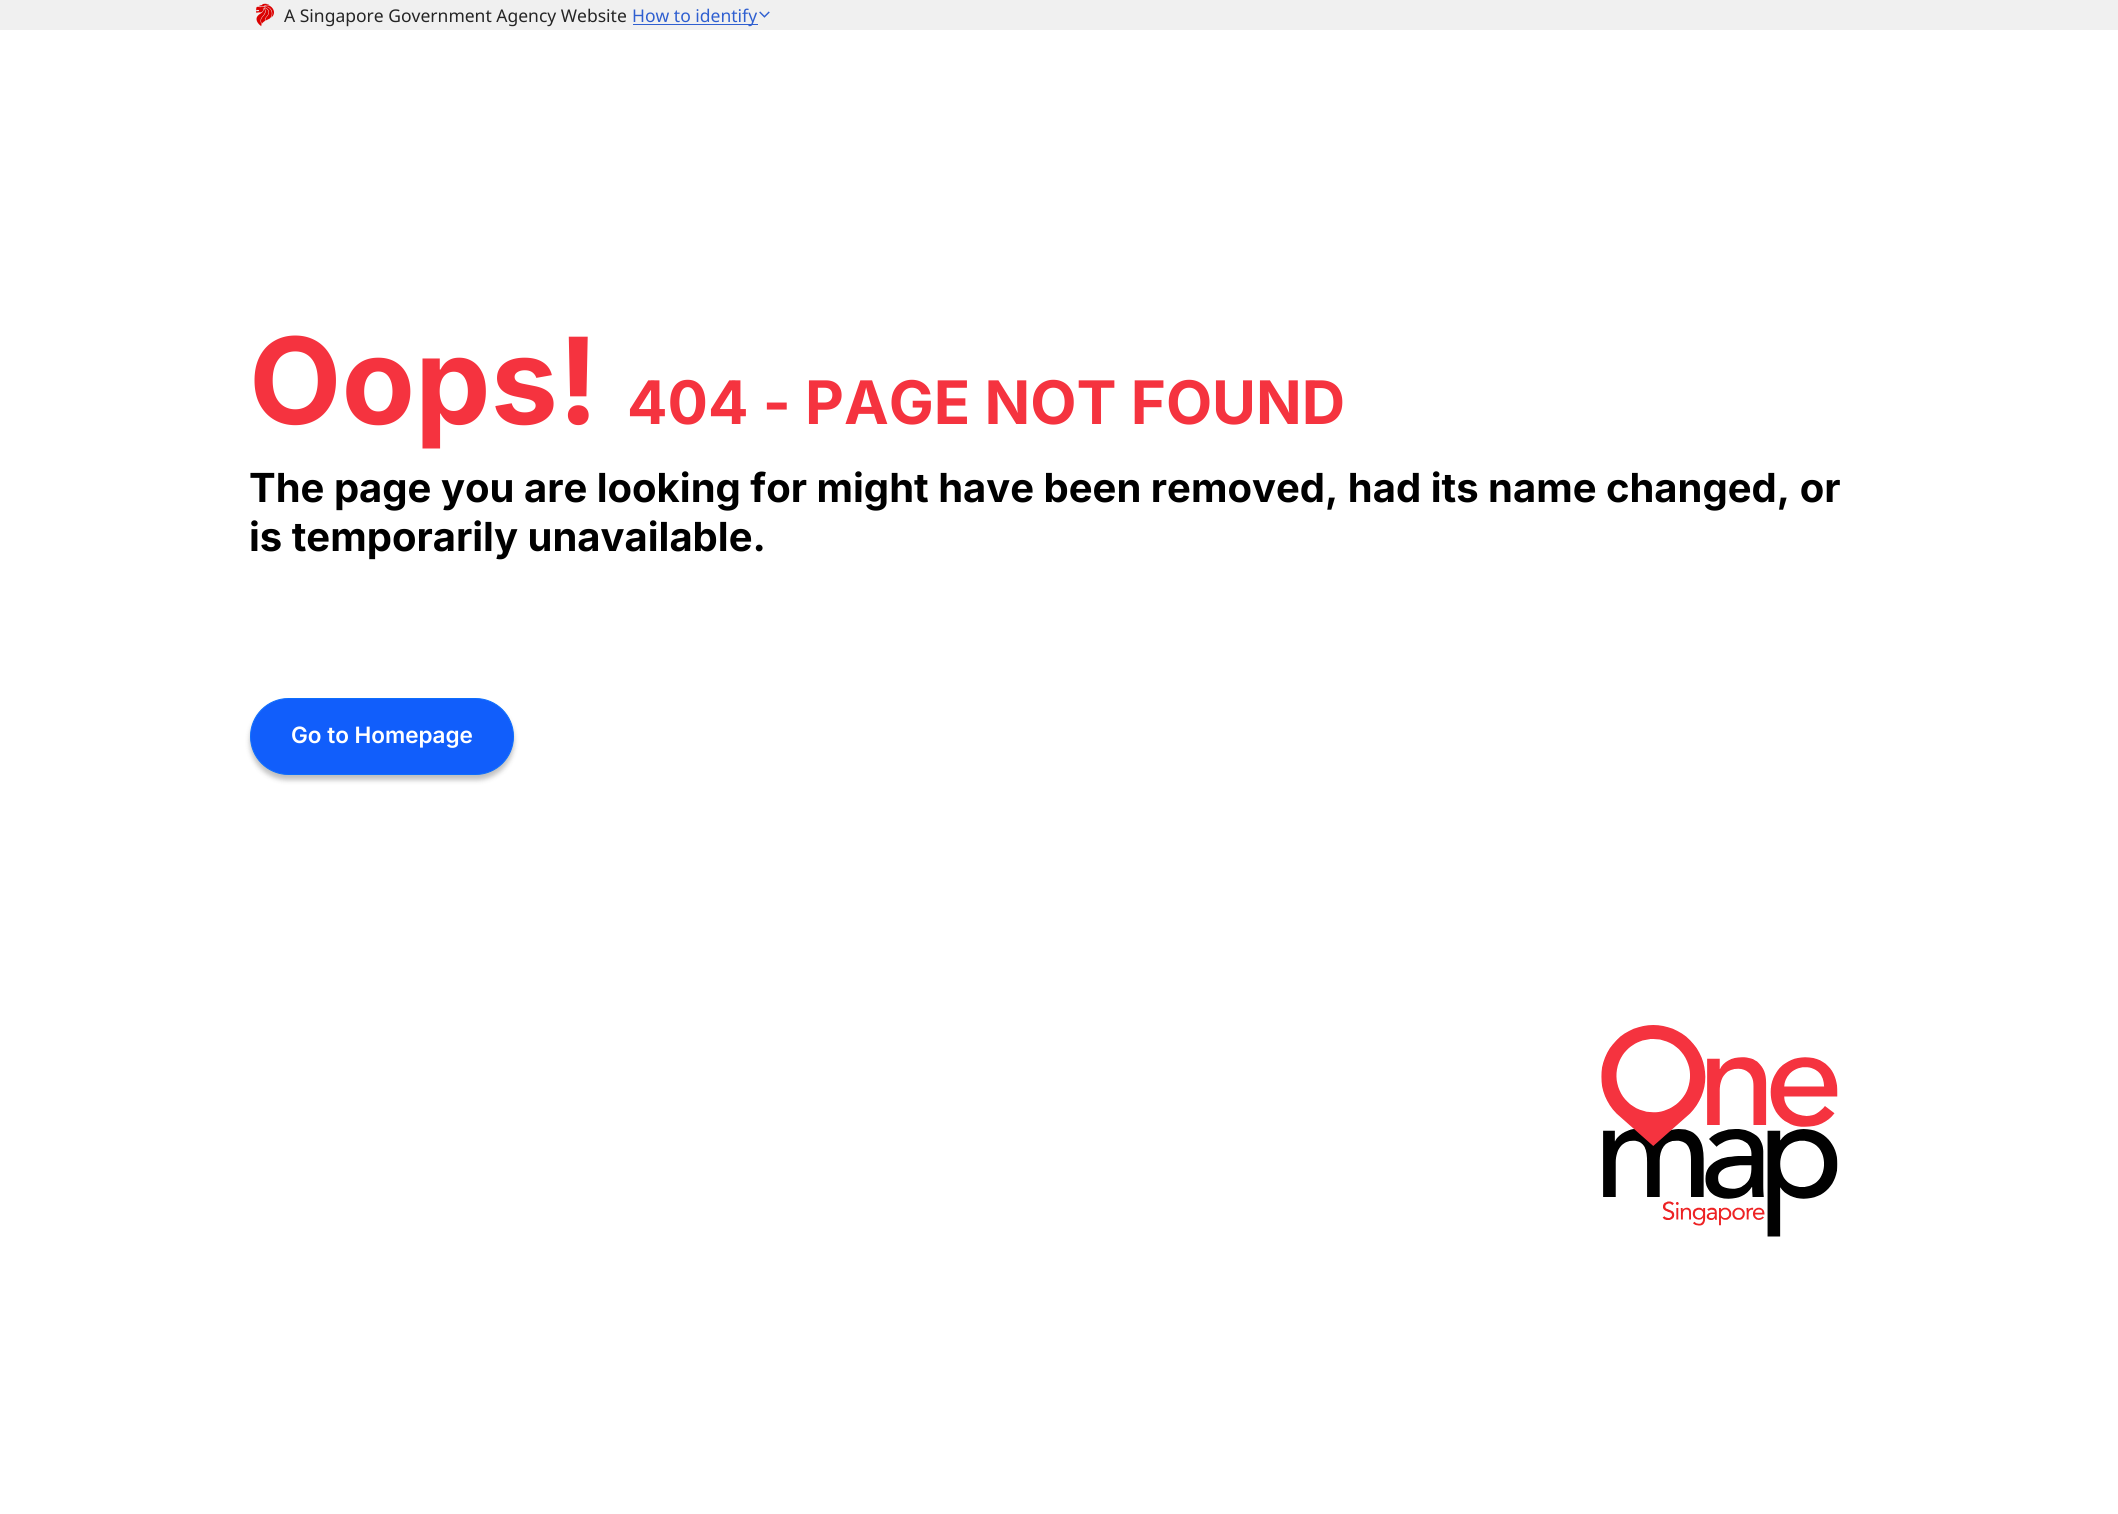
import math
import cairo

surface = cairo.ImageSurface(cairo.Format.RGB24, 2118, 1514)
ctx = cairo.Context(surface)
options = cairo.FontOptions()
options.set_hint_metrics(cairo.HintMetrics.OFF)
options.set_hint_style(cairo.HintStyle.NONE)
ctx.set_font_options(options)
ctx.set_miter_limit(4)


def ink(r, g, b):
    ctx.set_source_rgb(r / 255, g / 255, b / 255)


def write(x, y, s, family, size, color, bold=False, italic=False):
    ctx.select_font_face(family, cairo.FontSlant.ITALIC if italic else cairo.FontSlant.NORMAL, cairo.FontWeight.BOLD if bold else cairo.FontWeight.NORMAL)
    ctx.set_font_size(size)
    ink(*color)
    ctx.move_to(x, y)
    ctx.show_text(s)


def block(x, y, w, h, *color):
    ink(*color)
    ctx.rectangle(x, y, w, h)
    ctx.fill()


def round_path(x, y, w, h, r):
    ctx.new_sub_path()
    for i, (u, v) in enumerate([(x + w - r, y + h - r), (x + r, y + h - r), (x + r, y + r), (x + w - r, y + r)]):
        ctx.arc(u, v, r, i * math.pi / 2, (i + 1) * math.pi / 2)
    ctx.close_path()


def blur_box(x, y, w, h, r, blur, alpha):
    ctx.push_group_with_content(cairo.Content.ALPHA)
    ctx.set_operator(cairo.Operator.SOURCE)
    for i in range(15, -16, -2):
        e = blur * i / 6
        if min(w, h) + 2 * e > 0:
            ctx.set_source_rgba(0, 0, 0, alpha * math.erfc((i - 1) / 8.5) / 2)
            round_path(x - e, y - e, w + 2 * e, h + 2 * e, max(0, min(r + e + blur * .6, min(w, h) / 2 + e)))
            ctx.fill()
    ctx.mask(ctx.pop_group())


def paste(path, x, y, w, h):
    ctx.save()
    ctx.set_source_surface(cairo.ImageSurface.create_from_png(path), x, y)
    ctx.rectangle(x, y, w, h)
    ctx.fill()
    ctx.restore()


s1 = dict(family="Noto Sans", size=17.5, color=(37, 37, 37))
s2 = dict(family="Noto Sans", size=17.5, color=(47, 95, 208))
s3 = dict(family="Inter", size=120, color=(245, 51, 63), bold=True)
s4 = dict(family="Inter", size=60, color=(245, 51, 63), bold=True)
s5 = dict(family="Inter", size=40, color=(0, 0, 0), bold=True)
s6 = dict(family="Inter SemiBold", size=22.5, color=(255, 255, 255))

ink(255, 255, 255)
ctx.paint()
block(0, 0, 2118, 30, 240, 240, 240)
paste("pic1.png", 256, 3, 18, 24)
write(284, 22, "A Singapore Government Agency Website", **s1)
block(633, 24, 125, 1, 47, 95, 208)
write(632, 22, "How to identify", **s2)
paste("pic2.png", 759, 11, 11, 7)
write(249, 424, "Oops!", **s3)
write(627, 424, "404 - PAGE NOT FOUND", **s4)
write(249, 502, "The page you are looking for might have been removed, had its name changed, or", **s5)
write(249, 551, "is temporarily unavailable.", **s5)
ink(0, 0, 0)
blur_box(250, 703, 264, 77, 38.5, 2.5, 0.25)
ink(17, 94, 251)
round_path(250.5, 698.5, 263, 76, 38)
ctx.fill_preserve()
ink(13, 110, 253)
ctx.set_line_width(1)
ctx.stroke()
write(291, 743, "Go to Homepage", **s6)
paste("pic3.png", 1601, 1025, 237, 212)
surface.write_to_png("screenshot.png")
